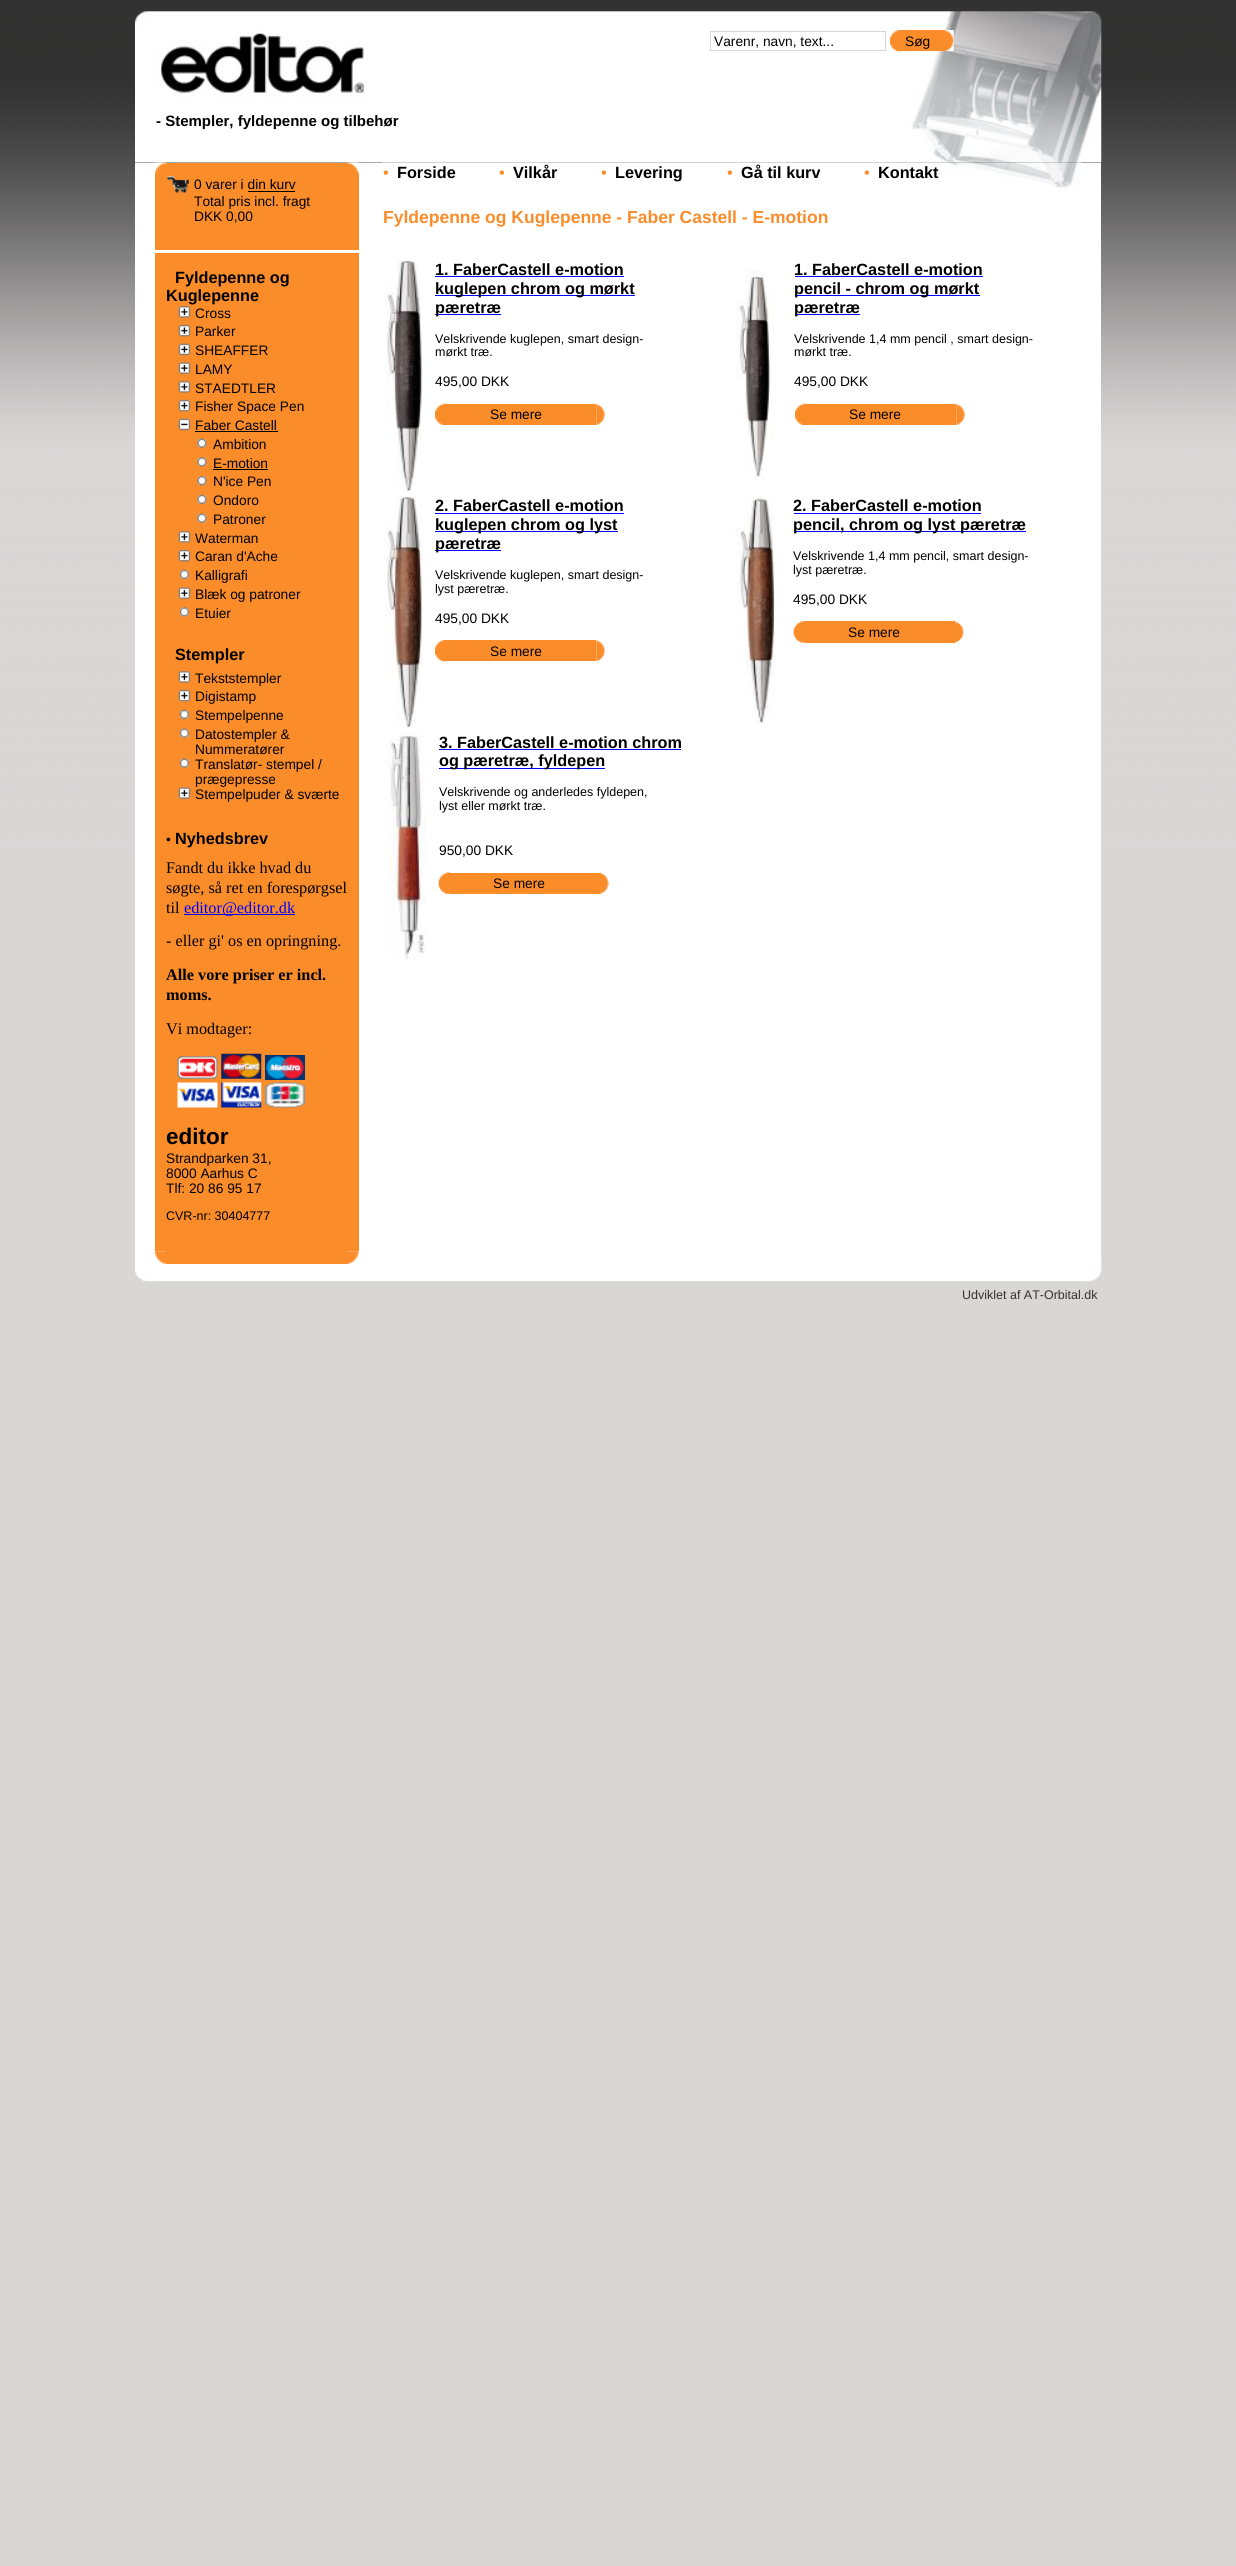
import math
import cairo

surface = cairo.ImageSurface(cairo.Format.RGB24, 1236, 2566)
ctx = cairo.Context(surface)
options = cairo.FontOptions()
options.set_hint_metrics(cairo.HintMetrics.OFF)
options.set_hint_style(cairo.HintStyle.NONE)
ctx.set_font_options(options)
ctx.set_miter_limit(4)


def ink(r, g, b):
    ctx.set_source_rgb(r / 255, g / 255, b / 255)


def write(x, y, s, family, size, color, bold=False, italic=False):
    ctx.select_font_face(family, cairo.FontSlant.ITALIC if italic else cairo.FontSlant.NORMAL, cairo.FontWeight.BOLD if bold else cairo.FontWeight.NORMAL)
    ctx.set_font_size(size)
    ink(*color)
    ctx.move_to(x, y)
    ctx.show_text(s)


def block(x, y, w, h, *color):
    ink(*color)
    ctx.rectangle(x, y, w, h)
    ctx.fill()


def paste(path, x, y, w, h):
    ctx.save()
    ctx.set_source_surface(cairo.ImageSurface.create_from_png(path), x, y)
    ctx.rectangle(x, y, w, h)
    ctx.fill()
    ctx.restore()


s1 = dict(family="Liberation Sans", size=13.75, color=(0, 0, 0))
s2 = dict(family="Liberation Sans", size=15, color=(0, 0, 0), bold=True)
s3 = dict(family="Liberation Sans", size=16.25, color=(0, 0, 0), bold=True)
s4 = dict(family="Liberation Serif", size=16.25, color=(0, 0, 0))
s5 = dict(family="Liberation Serif", size=16.25, color=(0, 0, 255))
s6 = dict(family="Liberation Serif", size=16.25, color=(0, 0, 0), bold=True)
s7 = dict(family="Liberation Sans", size=22.5, color=(0, 0, 0), bold=True)
s8 = dict(family="Liberation Sans", size=12.5, color=(0, 0, 0))
s9 = dict(family="Liberation Sans", size=16.25, color=(250, 140, 42))
s10 = dict(family="Liberation Sans", size=17.5, color=(250, 140, 42), bold=True)
s11 = dict(family="Liberation Sans", size=12.5, color=(50, 50, 50))

ink(255, 255, 255)
ctx.paint()
paste("pic1.png", 0, 0, 1236, 2566)
paste("pic2.png", 135, 11, 967, 152)
ctx.rectangle(710.5, 31.5, 175, 19)
ink(213, 213, 213)
ctx.set_line_width(1)
ctx.stroke()
write(714, 46, "Varenr, navn, text...", **s1)
block(901, 30, 44, 21, 250, 140, 42)
paste("pic3.png", 890, 30, 12, 22)
write(905, 46, "Søg", **s1)
paste("pic4.png", 945, 30, 9, 22)
write(156, 126, "- Stempler, fyldepenne og tilbehør", **s2)
block(135, 163, 20, 1107, 255, 255, 255)
paste("pic5.png", 135, 1270, 20, 12)
block(155, 163, 228, 1118, 255, 255, 255)
block(166, 163, 182, 12, 250, 140, 42)
paste("pic6.png", 155, 162, 12, 13)
paste("pic7.png", 347, 162, 12, 13)
block(155, 175, 204, 75, 250, 140, 42)
paste("pic8.png", 167, 176, 22, 17)
write(194, 189, "0 varer i din kurv", **s1)
block(248, 191, 47, 1, 0, 0, 0)
write(194, 206, "Total pris incl. fragt", **s1)
write(194, 221, "DKK 0,00", **s1)
block(155, 253, 204, 998, 250, 140, 42)
write(175, 283, "Fyldepenne og", **s3)
write(166, 301, "Kuglepenne", **s3)
paste("pic9.png", 178, 306, 13, 12)
write(195, 318, "Cross", **s1)
paste("pic10.png", 178, 324, 13, 13)
write(195, 336, "Parker", **s1)
paste("pic11.png", 178, 343, 13, 13)
write(195, 355, "SHEAFFER", **s1)
paste("pic12.png", 178, 362, 13, 12)
write(195, 374, "LAMY", **s1)
paste("pic9.png", 178, 381, 13, 12)
write(195, 393, "STAEDTLER", **s1)
paste("pic10.png", 178, 399, 13, 13)
write(195, 411, "Fisher Space Pen", **s1)
paste("pic13.png", 178, 418, 13, 13)
write(195, 430, "Faber Castell", **s1)
block(195, 431, 83, 1, 0, 0, 0)
paste("pic14.png", 197, 438, 10, 10)
write(213, 449, "Ambition", **s1)
paste("pic15.png", 197, 457, 10, 10)
write(213, 468, "E-motion", **s1)
block(213, 469, 55, 1, 0, 0, 0)
paste("pic16.png", 197, 476, 10, 10)
write(213, 486, "N'ice Pen", **s1)
paste("pic17.png", 197, 494, 10, 10)
write(213, 505, "Ondoro", **s1)
paste("pic14.png", 197, 513, 10, 10)
write(213, 524, "Patroner", **s1)
paste("pic9.png", 178, 531, 13, 12)
write(195, 543, "Waterman", **s1)
paste("pic10.png", 178, 549, 13, 13)
write(195, 561, "Caran d'Ache", **s1)
paste("pic18.png", 179, 569, 10, 10)
write(195, 580, "Kalligrafi", **s1)
paste("pic19.png", 178, 587, 13, 12)
write(195, 599, "Blæk og patroner", **s1)
paste("pic20.png", 179, 607, 10, 10)
write(195, 618, "Etuier", **s1)
write(175, 660, "Stempler", **s3)
paste("pic9.png", 178, 671, 13, 12)
write(195, 683, "Tekststempler", **s1)
paste("pic10.png", 178, 689, 13, 13)
write(195, 701, "Digistamp", **s1)
paste("pic18.png", 179, 709, 10, 10)
write(195, 720, "Stempelpenne", **s1)
paste("pic21.png", 179, 728, 10, 10)
write(195, 739, "Datostempler &", **s1)
write(195, 754, "Nummeratører", **s1)
paste("pic21.png", 179, 758, 10, 10)
write(195, 769, "Translatør- stempel /", **s1)
write(195, 784, "prægepresse", **s1)
paste("pic12.png", 178, 787, 13, 12)
write(195, 799, "Stempelpuder & sværte", **s1)
write(166, 844, "•", **s1)
write(175, 844, "Nyhedsbrev", **s3)
write(166, 873, "Fandt du ikke hvad du", **s4)
write(166, 893, "søgte, så ret en forespørgsel", **s4)
write(166, 913, "til", **s4)
block(184, 914, 111, 1, 0, 0, 255)
write(184, 913, "editor@editor.dk", **s5)
write(166, 946, "- eller gi' os en opringning.", **s4)
write(166, 980, "Alle vore priser er incl.", **s6)
write(166, 1000, "moms.", **s6)
write(166, 1034, "Vi modtager:", **s4)
paste("pic22.png", 177, 1056, 41, 23)
paste("pic23.png", 221, 1053, 41, 26)
paste("pic24.png", 265, 1055, 40, 25)
paste("pic25.png", 177, 1082, 41, 26)
paste("pic26.png", 221, 1082, 41, 26)
paste("pic27.png", 265, 1082, 40, 26)
write(166, 1144, "editor", **s7)
write(166, 1163, "Strandparken 31,", **s1)
write(166, 1178, "8000 Aarhus C", **s1)
write(166, 1193, "Tlf: 20 86 95 17", **s1)
write(166, 1220, "CVR-nr: 30404777", **s8)
paste("pic28.png", 155, 1251, 11, 13)
block(166, 1251, 182, 13, 250, 140, 42)
paste("pic29.png", 347, 1251, 12, 13)
block(383, 208, 698, 1073, 255, 255, 255)
paste("pic30.png", 382, 162, 700, 47)
write(383, 178, "•", **s9)
write(397, 178, "Forside", **s3)
write(499, 178, "•", **s9)
write(513, 178, "Vilkår", **s3)
write(601, 178, "•", **s9)
write(615, 178, "Levering", **s3)
write(727, 178, "•", **s9)
write(741, 178, "Gå til kurv", **s3)
write(864, 178, "•", **s9)
write(878, 178, "Kontakt", **s3)
write(383, 223, "Fyldepenne og Kuglepenne - Faber Castell - E-motion", **s10)
paste("pic31.png", 386, 260, 37, 232)
write(435, 275, "1. FaberCastell e-motion", **s3)
block(435, 276, 189, 1, 0, 0, 255)
block(435, 295, 200, 1, 0, 0, 255)
write(435, 294, "kuglepen chrom og mørkt", **s3)
block(435, 314, 66, 1, 0, 0, 255)
write(435, 313, "pæretræ", **s3)
write(435, 343, "Velskrivende kuglepen, smart design-", **s8)
write(435, 356, "mørkt træ.", **s8)
write(435, 386, "495,00 DKK", **s1)
block(446, 404, 150, 21, 250, 140, 42)
paste("pic32.png", 435, 403, 12, 22)
write(490, 419, "Se mere", **s1)
paste("pic33.png", 596, 403, 9, 22)
paste("pic34.png", 735, 270, 40, 210)
write(794, 275, "1. FaberCastell e-motion", **s3)
block(795, 276, 188, 1, 0, 0, 255)
block(795, 295, 185, 1, 0, 0, 255)
write(794, 294, "pencil - chrom og mørkt", **s3)
block(795, 314, 65, 1, 0, 0, 255)
write(794, 313, "pæretræ", **s3)
write(794, 343, "Velskrivende 1,4 mm pencil , smart design-", **s8)
write(794, 356, "mørkt træ.", **s8)
write(794, 386, "495,00 DKK", **s1)
block(806, 404, 150, 21, 250, 140, 42)
paste("pic35.png", 795, 403, 12, 22)
write(849, 419, "Se mere", **s1)
paste("pic33.png", 956, 403, 9, 22)
paste("pic36.png", 386, 496, 37, 232)
write(435, 511, "2. FaberCastell e-motion", **s3)
block(435, 513, 189, 1, 0, 0, 255)
block(435, 531, 183, 1, 0, 0, 255)
write(435, 530, "kuglepen chrom og lyst", **s3)
block(435, 550, 66, 1, 0, 0, 255)
write(435, 549, "pæretræ", **s3)
write(435, 579, "Velskrivende kuglepen, smart design-", **s8)
write(435, 593, "lyst pæretræ.", **s8)
write(435, 623, "495,00 DKK", **s1)
block(446, 640, 150, 21, 250, 140, 42)
paste("pic37.png", 435, 640, 12, 22)
write(490, 656, "Se mere", **s1)
paste("pic38.png", 596, 640, 9, 22)
paste("pic39.png", 735, 496, 40, 230)
write(793, 511, "2. FaberCastell e-motion", **s3)
block(794, 513, 187, 1, 0, 0, 255)
block(794, 531, 232, 1, 0, 0, 255)
write(793, 530, "pencil, chrom og lyst pæretræ", **s3)
write(793, 560, "Velskrivende 1,4 mm pencil, smart design-", **s8)
write(793, 574, "lyst pæretræ.", **s8)
write(793, 604, "495,00 DKK", **s1)
paste("pic40.png", 793, 621, 12, 22)
block(805, 621, 150, 22, 250, 140, 42)
write(848, 637, "Se mere", **s1)
paste("pic41.png", 955, 621, 9, 22)
paste("pic42.png", 386, 734, 41, 227)
write(439, 748, "3. FaberCastell e-motion chrom", **s3)
block(439, 749, 242, 1, 0, 0, 255)
block(439, 768, 166, 1, 0, 0, 255)
write(439, 766, "og pæretræ, fyldepen", **s3)
write(439, 796, "Velskrivende og anderledes fyldepen,", **s8)
write(439, 810, "lyst eller mørkt træ.", **s8)
write(439, 855, "950,00 DKK", **s1)
paste("pic43.png", 438, 872, 12, 22)
block(450, 873, 150, 21, 250, 140, 42)
write(493, 888, "Se mere", **s1)
paste("pic44.png", 600, 872, 9, 22)
block(1081, 163, 20, 1118, 255, 255, 255)
paste("pic45.png", 1081, 1256, 21, 26)
write(962, 1299, "Udviklet af AT-Orbital.dk", **s11)
surface.write_to_png("screenshot.png")
